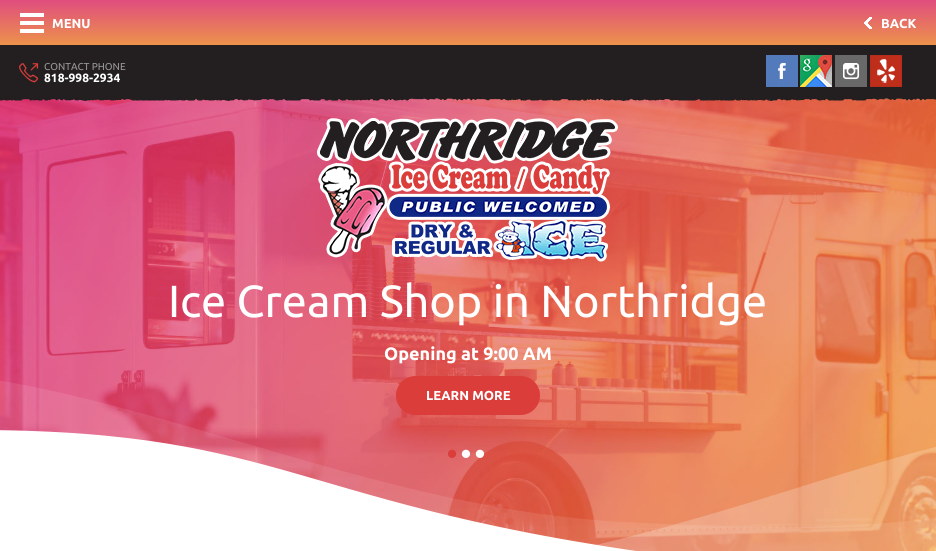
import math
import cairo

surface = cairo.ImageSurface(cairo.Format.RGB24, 936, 551)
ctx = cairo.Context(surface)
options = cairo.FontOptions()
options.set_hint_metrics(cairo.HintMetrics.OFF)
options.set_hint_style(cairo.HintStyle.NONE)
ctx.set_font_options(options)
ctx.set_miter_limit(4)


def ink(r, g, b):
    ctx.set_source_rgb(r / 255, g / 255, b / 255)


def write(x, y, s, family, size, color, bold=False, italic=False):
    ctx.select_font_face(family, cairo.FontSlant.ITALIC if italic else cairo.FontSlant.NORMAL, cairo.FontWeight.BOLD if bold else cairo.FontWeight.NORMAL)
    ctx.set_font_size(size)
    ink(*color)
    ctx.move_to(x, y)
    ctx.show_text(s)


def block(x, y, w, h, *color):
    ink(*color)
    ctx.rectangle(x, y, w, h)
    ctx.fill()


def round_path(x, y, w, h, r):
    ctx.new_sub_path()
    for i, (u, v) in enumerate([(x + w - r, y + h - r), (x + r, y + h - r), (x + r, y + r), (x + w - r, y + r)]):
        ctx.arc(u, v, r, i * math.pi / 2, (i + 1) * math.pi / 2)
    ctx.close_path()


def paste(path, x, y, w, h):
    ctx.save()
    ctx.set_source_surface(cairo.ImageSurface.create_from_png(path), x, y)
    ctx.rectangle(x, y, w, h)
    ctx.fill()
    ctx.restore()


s1 = dict(family="Ubuntu", size=13, color=(255, 255, 255), bold=True)
s2 = dict(family="Ubuntu", size=10, color=(153, 153, 153))
s3 = dict(family="Ubuntu", size=12, color=(255, 255, 255), bold=True)
s4 = dict(family="Ubuntu", size=45, color=(255, 255, 255))
s5 = dict(family="Ubuntu", size=18, color=(255, 255, 255), bold=True)

ink(255, 255, 255)
ctx.paint()
gradient = cairo.LinearGradient(468, 0, 468, 45)
gradient.add_color_stop_rgba(0, 0.875, 0.302, 0.494, 1)
gradient.add_color_stop_rgba(1, 0.929, 0.573, 0.294, 1)
ctx.set_source(gradient)
ctx.rectangle(0, 0, 936, 45)
ctx.fill()
paste("pic1.png", 20, 13, 24, 20)
write(52, 28, "MENU", **s1)
paste("pic2.png", 864, 17, 8, 12)
write(881, 28, "BACK", **s1)
block(0, 45, 936, 53, 35, 31, 32)
paste("pic3.png", 19, 63, 20, 20)
write(44, 70, "CONTACT PHONE", **s2)
write(44, 82, "818-998-2934", **s3)
paste("pic4.png", 766, 55, 32, 32)
paste("pic5.png", 800, 55, 32, 32)
paste("pic6.png", 835, 55, 32, 32)
paste("pic7.png", 870, 55, 32, 32)
paste("pic8.png", 0, 98, 936, 453)
paste("pic9.png", 448, 449, 9, 9)
paste("pic10.png", 461, 449, 10, 9)
paste("pic11.png", 475, 449, 10, 9)
paste("pic12.png", 317, 118, 301, 144)
write(168, 317, "Ice Cream Shop in Northridge", **s4)
write(384, 360, "Opening at 9:00 AM", **s5)
paste("pic13.png", 0, 381, 936, 170)
ink(218, 61, 58)
round_path(396, 376, 144, 39, 19.5)
ctx.fill()
write(426, 400, "LEARN MORE", **s1)
surface.write_to_png("screenshot.png")
